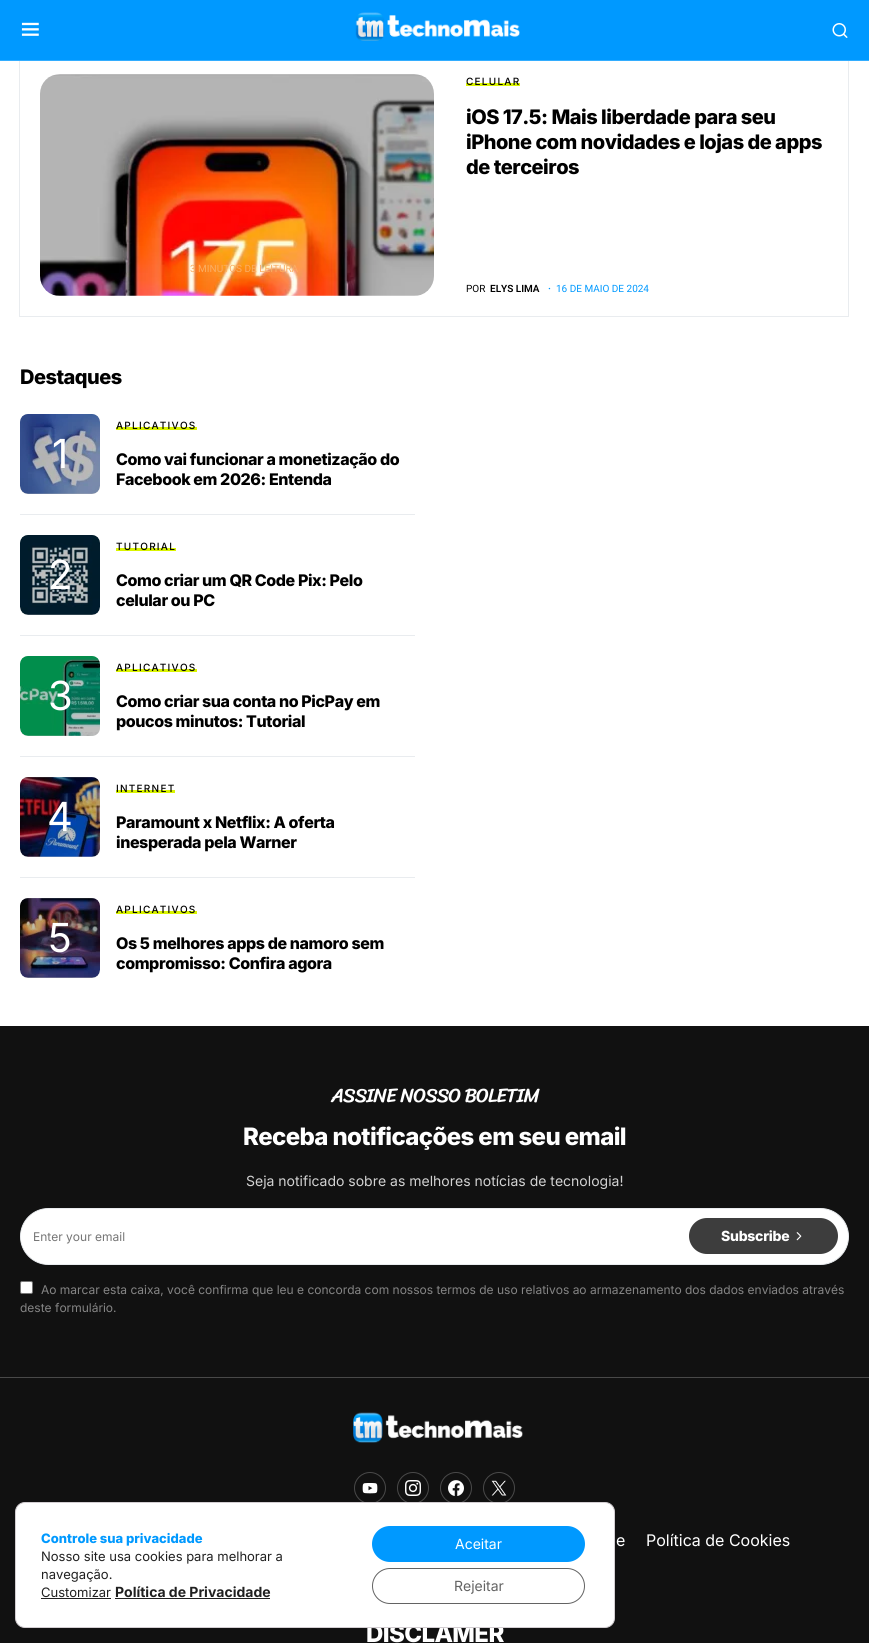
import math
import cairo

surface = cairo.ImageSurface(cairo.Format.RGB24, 869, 1643)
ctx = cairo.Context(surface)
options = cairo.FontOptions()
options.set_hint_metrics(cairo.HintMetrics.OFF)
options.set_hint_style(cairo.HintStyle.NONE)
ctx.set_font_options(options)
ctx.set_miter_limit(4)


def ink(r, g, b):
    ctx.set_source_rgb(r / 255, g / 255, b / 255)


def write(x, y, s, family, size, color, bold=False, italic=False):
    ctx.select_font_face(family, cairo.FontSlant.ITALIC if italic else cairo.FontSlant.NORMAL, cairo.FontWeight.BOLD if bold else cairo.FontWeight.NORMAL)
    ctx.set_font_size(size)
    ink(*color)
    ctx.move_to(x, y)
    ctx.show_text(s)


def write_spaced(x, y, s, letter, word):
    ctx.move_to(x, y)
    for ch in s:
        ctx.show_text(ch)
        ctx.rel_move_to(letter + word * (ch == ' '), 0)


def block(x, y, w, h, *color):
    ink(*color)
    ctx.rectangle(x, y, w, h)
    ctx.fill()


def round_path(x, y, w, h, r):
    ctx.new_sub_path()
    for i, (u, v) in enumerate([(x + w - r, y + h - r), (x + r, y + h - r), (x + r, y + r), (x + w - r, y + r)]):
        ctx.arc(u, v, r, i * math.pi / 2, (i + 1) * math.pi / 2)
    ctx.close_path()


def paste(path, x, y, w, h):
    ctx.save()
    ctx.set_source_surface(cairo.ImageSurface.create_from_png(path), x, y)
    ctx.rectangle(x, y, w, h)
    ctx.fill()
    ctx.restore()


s1 = dict(family="Roboto", size=10, color=(250, 174, 99))
s2 = dict(family="Roboto", size=10, color=(0, 0, 0))
s3 = dict(family="Roboto SemiBold", size=10, color=(0, 0, 0))
s4 = dict(family="Roboto SemiBold", size=10, color=(0, 153, 255))
s5 = dict(family="Roboto", size=10, color=(0, 153, 255))
s6 = dict(family="Inter", size=40, color=(255, 255, 255))
s7 = dict(family="Inter", size=14, color=(210, 210, 210))
s8 = dict(family="Inter", size=12, color=(117, 117, 117))
s9 = dict(family="Inter", size=12, color=(133, 133, 133))
s10 = dict(family="Inter", size=16, color=(255, 255, 255))
s11 = dict(family="Inter ExtraBold", size=13, color=(0, 153, 255))
s12 = dict(family="Inter", size=13, color=(32, 32, 32))
s13 = dict(family="Inter", size=14, color=(32, 32, 32), bold=True)
s14 = dict(family="Inter", size=14, color=(255, 255, 255))
s15 = dict(family="Inter", size=14, color=(99, 99, 99))

ink(255, 255, 255)
ctx.paint()
ctx.rectangle(19.5, 53.5, 829, 263)
ink(233, 236, 239)
ctx.set_line_width(1)
ctx.stroke()
block(0, 0, 869, 60, 0, 153, 255)
block(0, 60, 869, 1, 51, 173, 255)
paste("pic1.png", 21, 22, 18, 14)
paste("pic2.png", 355, 12, 165, 29)
paste("pic3.png", 832, 23, 16, 15)
paste("pic4.png", 40, 74, 394, 222)
write(190, 272, "3 MINUTOS DE LEITURA", **s1)
block(466, 83, 54, 3, 218, 244, 0)
ctx.select_font_face("Inter Medium")
ink(0, 0, 0)
write_spaced(466, 85, "CELULAR", 1.25, 0)
ctx.select_font_face("Inter ExtraBold")
ctx.set_font_size(20)
write_spaced(466, 124, "iOS 17.5: Mais liberdade para seu", -0.5, 0)
write_spaced(466, 149, "iPhone com novidades e lojas de apps", -0.5, 0)
write_spaced(466, 174, "de terceiros", -0.5, 0)
write(466, 292, "POR", **s2)
write(490, 292, "ELYS LIMA", **s3)
write(548, 292, "·", **s4)
write(556, 292, "16 DE MAIO DE 2024", **s5)
ctx.select_font_face("Inter ExtraBold")
ctx.set_font_size(20)
ink(0, 0, 0)
write_spaced(20, 384, "Destaques", -0.5, 0)
paste("pic5.png", 20, 414, 80, 80)
ctx.set_source_rgba(0, 0, 0, 0.25)
round_path(20, 414, 80, 80, 8)
ctx.fill()
write(52, 468, "1", **s6)
block(116, 427, 81, 3, 218, 244, 0)
ctx.select_font_face("Inter Medium")
ctx.set_font_size(10)
ink(0, 0, 0)
write_spaced(116, 429, "APLICATIVOS", 1.25, 0)
ctx.select_font_face("Inter ExtraBold")
ctx.set_font_size(16)
write_spaced(116, 465, "Como vai funcionar a monetização do", -0.4, 0)
write_spaced(116, 485, "Facebook em 2026: Entenda", -0.4, 0)
block(20, 514, 395, 1, 233, 236, 239)
paste("pic6.png", 20, 535, 80, 80)
ctx.set_source_rgba(0, 0, 0, 0.25)
round_path(20, 535, 80, 80, 8)
ctx.fill()
write(48, 589, "2", **s6)
block(116, 548, 60, 3, 218, 244, 0)
ctx.select_font_face("Inter Medium")
ctx.set_font_size(10)
ink(0, 0, 0)
write_spaced(116, 550, "TUTORIAL", 1.25, 0)
ctx.select_font_face("Inter ExtraBold")
ctx.set_font_size(16)
write_spaced(116, 586, "Como criar um QR Code Pix: Pelo", -0.4, 0)
write_spaced(116, 606, "celular ou PC", -0.4, 0)
block(20, 635, 395, 1, 233, 236, 239)
paste("pic7.png", 20, 656, 80, 80)
ctx.set_source_rgba(0, 0, 0, 0.25)
round_path(20, 656, 80, 80, 8)
ctx.fill()
write(48, 710, "3", **s6)
block(116, 669, 81, 3, 218, 244, 0)
ctx.select_font_face("Inter Medium")
ctx.set_font_size(10)
ink(0, 0, 0)
write_spaced(116, 671, "APLICATIVOS", 1.25, 0)
ctx.select_font_face("Inter ExtraBold")
ctx.set_font_size(16)
write_spaced(116, 707, "Como criar sua conta no PicPay em", -0.4, 0)
write_spaced(116, 727, "poucos minutos: Tutorial", -0.4, 0)
block(20, 756, 395, 1, 233, 236, 239)
paste("pic8.png", 20, 777, 80, 80)
ctx.set_source_rgba(0, 0, 0, 0.25)
round_path(20, 777, 80, 80, 8)
ctx.fill()
write(47, 831, "4", **s6)
block(116, 790, 59, 3, 218, 244, 0)
ctx.select_font_face("Inter Medium")
ctx.set_font_size(10)
ink(0, 0, 0)
write_spaced(116, 792, "INTERNET", 1.25, 0)
ctx.select_font_face("Inter ExtraBold")
ctx.set_font_size(16)
write_spaced(116, 828, "Paramount x Netflix: A oferta", -0.4, 0)
write_spaced(116, 848, "inesperada pela Warner", -0.4, 0)
block(20, 877, 395, 1, 233, 236, 239)
paste("pic9.png", 20, 898, 80, 80)
ctx.set_source_rgba(0, 0, 0, 0.25)
round_path(20, 898, 80, 80, 8)
ctx.fill()
write(48, 952, "5", **s6)
block(116, 911, 81, 3, 218, 244, 0)
ctx.select_font_face("Inter Medium")
ctx.set_font_size(10)
ink(0, 0, 0)
write_spaced(116, 913, "APLICATIVOS", 1.25, 0)
ctx.select_font_face("Inter ExtraBold")
ctx.set_font_size(16)
write_spaced(116, 949, "Os 5 melhores apps de namoro sem", -0.4, 0)
write_spaced(116, 969, "compromisso: Confira agora", -0.4, 0)
block(0, 1026, 869, 617, 17, 17, 17)
block(0, 1377, 869, 1, 73, 73, 73)
ctx.select_font_face("Sriracha")
ctx.set_font_size(20)
ink(255, 255, 255)
write_spaced(331, 1102, "ASSINE NOSSO BOLETIM", -1, 0)
ctx.select_font_face("Inter ExtraBold")
ctx.set_font_size(24)
write_spaced(243, 1145, "Receba notificações em seu email", -0.6, 0)
write(246, 1186, "Seja notificado sobre as melhores notícias de tecnologia!", **s7)
ink(255, 255, 255)
round_path(20.5, 1208.5, 828, 56, 28)
ctx.fill_preserve()
ink(233, 236, 239)
ctx.stroke()
ink(255, 255, 255)
ctx.new_path()
ctx.move_to(48.5, 1209)
ctx.line_to(689, 1209)
ctx.line_to(689, 1264)
ctx.line_to(48.5, 1264)
ctx.curve_to(33.5, 1264, 21, 1251.5, 21, 1236.5)
ctx.curve_to(21, 1221.5, 33.5, 1209, 48.5, 1209)
ctx.close_path()
ctx.fill()
write(33, 1241, "Enter your email", **s8)
ink(61, 61, 61)
round_path(689, 1218, 149, 36, 18)
ctx.fill()
ctx.select_font_face("Inter ExtraBold")
ctx.set_font_size(14)
ink(255, 255, 255)
write_spaced(721, 1241, "Subscribe", -0.25, 0)
paste("pic10.png", 796, 1232, 6, 9)
round_path(20.5, 1281.5, 12, 12, 1.5)
ctx.fill_preserve()
ink(118, 118, 118)
ctx.stroke()
write(41, 1294, "Ao marcar esta caixa, você confirma que leu e concorda com nossos termos de uso relativos ao armazenamento dos dados enviados através", **s9)
write(20, 1312, "deste formulário.", **s9)
paste("pic11.png", 353, 1412, 170, 31)
ctx.arc(370, 1488, 15.5, 0, 2 * math.pi)
ink(73, 73, 73)
ctx.stroke()
paste("pic12.png", 362, 1483, 16, 11)
ctx.arc(413, 1488, 15.5, 0, 2 * math.pi)
ctx.stroke()
paste("pic13.png", 405, 1480, 16, 16)
ctx.arc(456, 1488, 15.5, 0, 2 * math.pi)
ctx.stroke()
paste("pic14.png", 448, 1480, 16, 16)
ctx.arc(499, 1488, 15.5, 0, 2 * math.pi)
ctx.stroke()
paste("pic15.png", 491, 1480, 16, 16)
write(616, 1546, "e", **s10)
write(646, 1546, "Política de Cookies", **s10)
ctx.select_font_face("Inter ExtraBold")
ctx.set_font_size(24)
write_spaced(366, 1642, "DISCLAMER", -0.6, 0)
round_path(15.5, 1502.5, 599, 125, 9.5)
ctx.fill_preserve()
ink(211, 206, 210)
ctx.stroke()
write(41, 1543, "Controle sua privacidade", **s11)
write(41, 1561, "Nosso site usa cookies para melhorar a", **s12)
write(41, 1579, "navegação.", **s12)
write(41, 1597, "Customizar", **s12)
block(41, 1598, 70, 1, 32, 32, 32)
write(115, 1597, "Política de Privacidade", **s13)
block(115, 1598, 155, 1, 32, 32, 32)
ink(0, 153, 255)
round_path(372, 1526, 213, 36, 18)
ctx.fill()
write(455, 1549, "Aceitar", **s14)
round_path(372.5, 1568.5, 212, 35, 17.5)
ink(99, 99, 99)
ctx.stroke()
write(454, 1591, "Rejeitar", **s15)
surface.write_to_png("screenshot.png")
